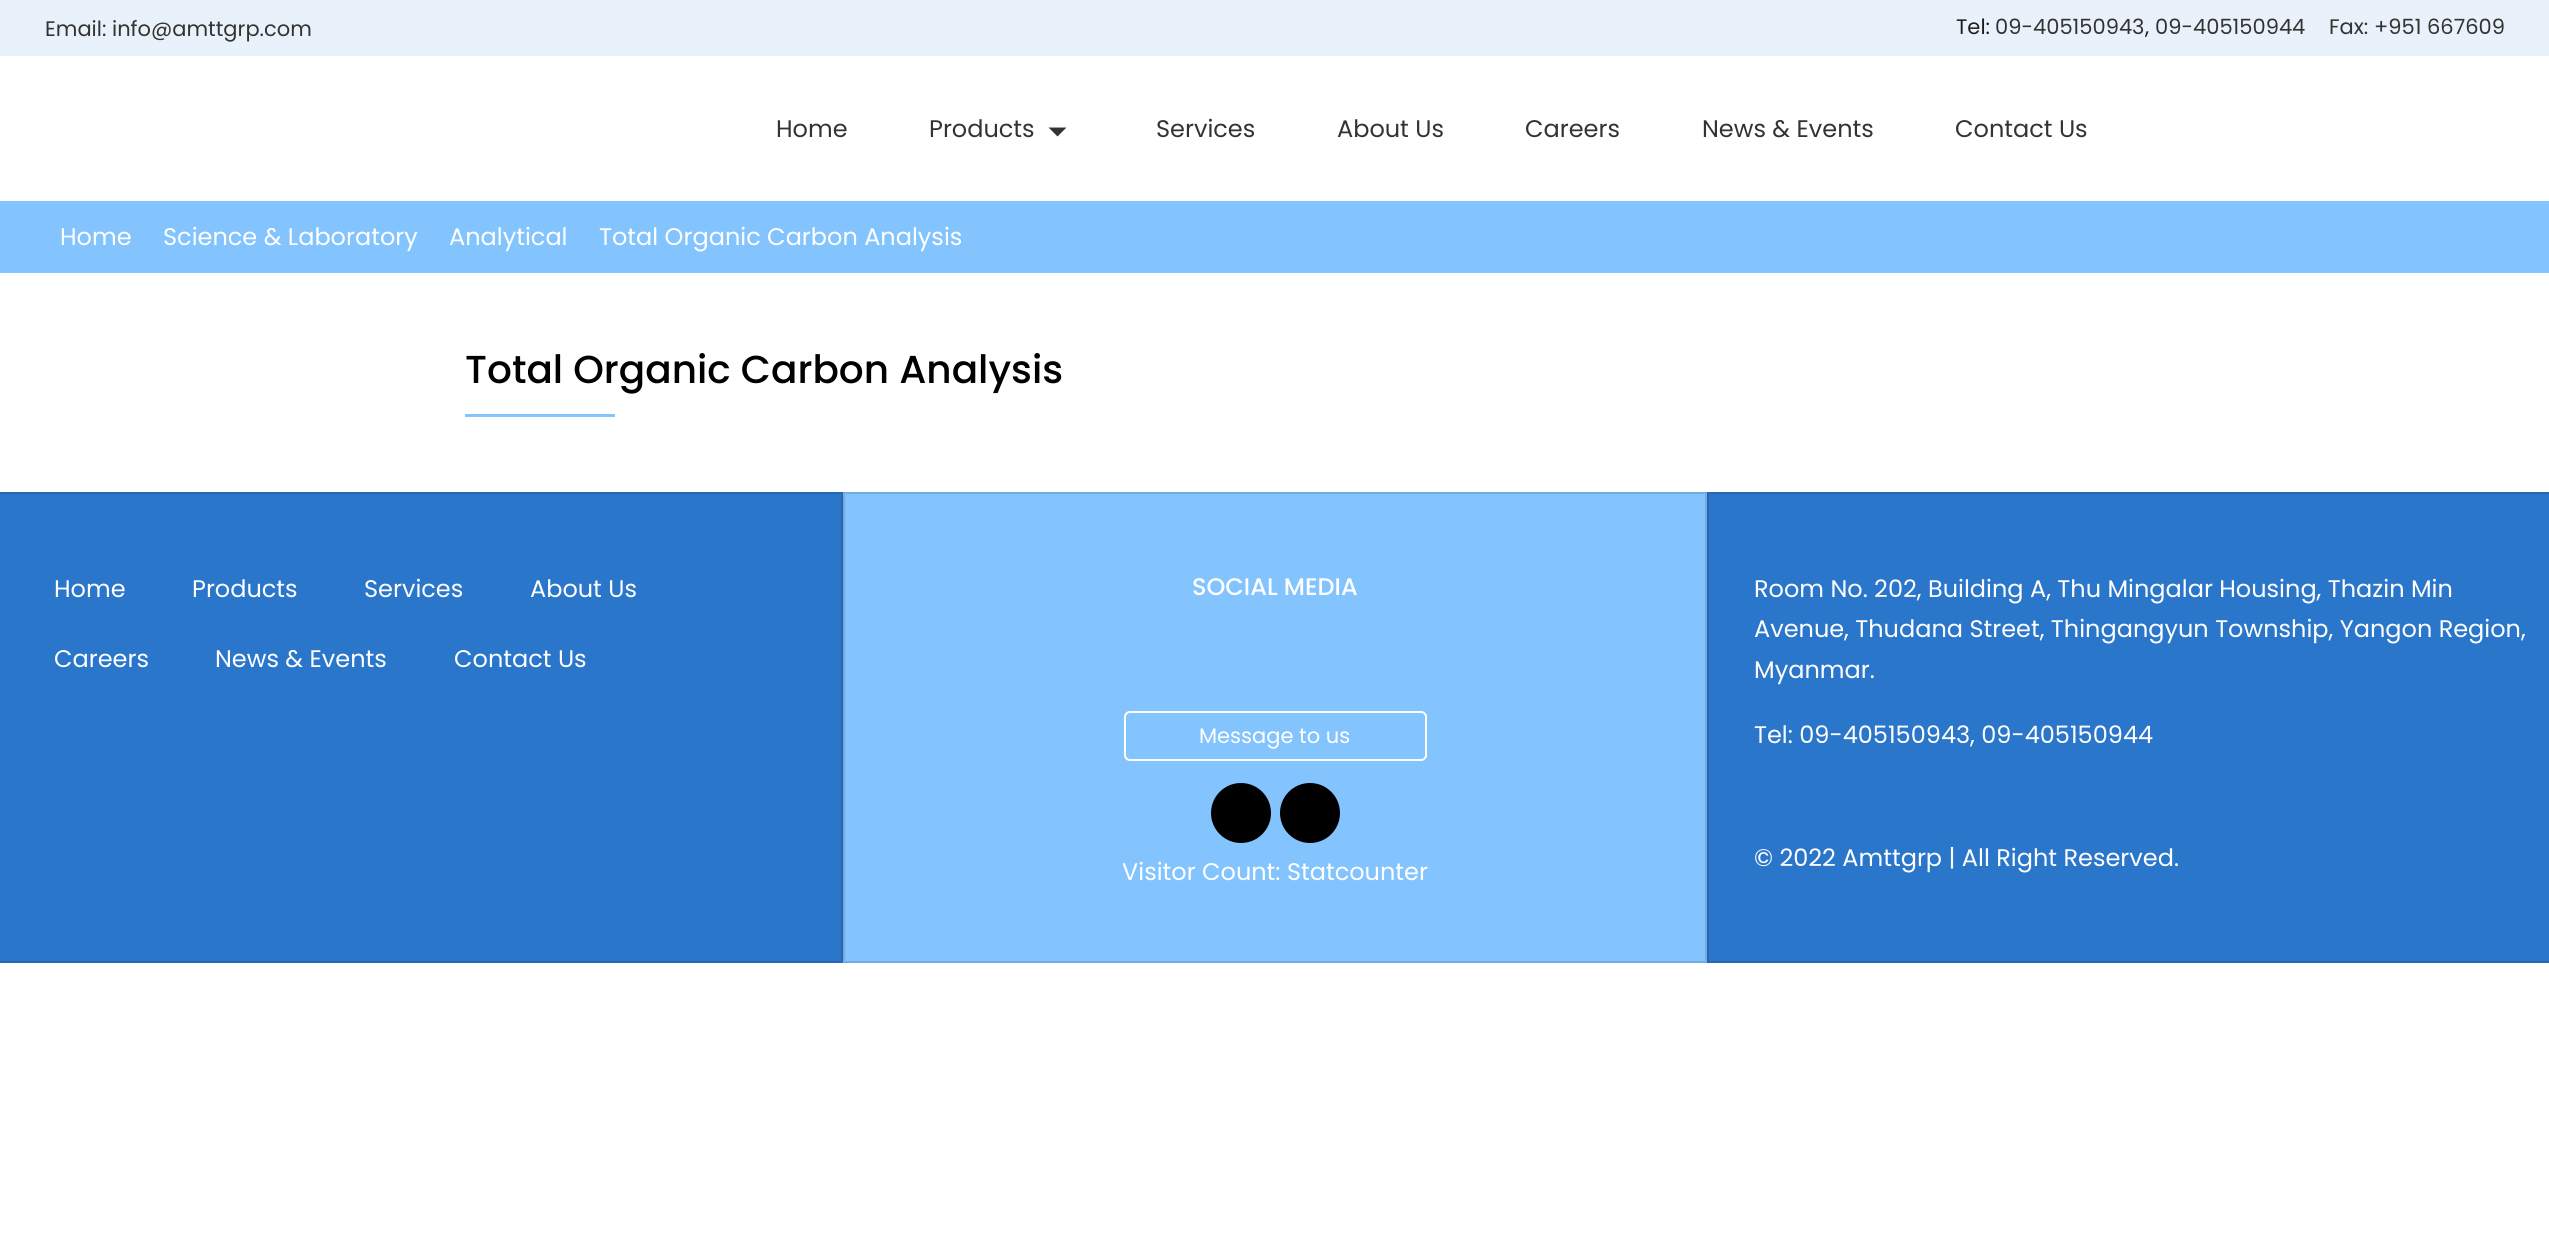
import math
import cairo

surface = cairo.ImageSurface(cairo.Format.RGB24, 2549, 1243)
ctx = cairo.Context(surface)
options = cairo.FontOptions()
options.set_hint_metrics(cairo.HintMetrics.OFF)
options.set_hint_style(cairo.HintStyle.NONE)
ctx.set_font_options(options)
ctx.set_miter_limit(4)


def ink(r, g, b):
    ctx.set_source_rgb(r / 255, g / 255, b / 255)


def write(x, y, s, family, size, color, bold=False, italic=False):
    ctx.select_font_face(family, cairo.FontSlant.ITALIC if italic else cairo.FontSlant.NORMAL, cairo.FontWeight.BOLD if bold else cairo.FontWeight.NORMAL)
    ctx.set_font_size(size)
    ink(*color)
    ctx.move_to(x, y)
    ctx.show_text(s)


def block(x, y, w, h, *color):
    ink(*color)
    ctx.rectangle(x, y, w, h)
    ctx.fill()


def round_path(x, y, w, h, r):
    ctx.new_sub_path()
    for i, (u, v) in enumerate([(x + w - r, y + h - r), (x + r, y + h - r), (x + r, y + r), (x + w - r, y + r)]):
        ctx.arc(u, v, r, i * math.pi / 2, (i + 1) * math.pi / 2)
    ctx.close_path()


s1 = dict(family="Poppins", size=21, color=(51, 51, 51))
s2 = dict(family="Poppins", size=21, color=(31, 31, 31))
s3 = dict(family="Poppins", size=24, color=(51, 51, 51))
s4 = dict(family="Poppins", size=24, color=(255, 255, 255))
s5 = dict(family="Poppins Medium", size=39, color=(0, 0, 0))
s6 = dict(family="Poppins Medium", size=24, color=(255, 255, 255))
s7 = dict(family="Poppins", size=21, color=(255, 255, 255))

ink(255, 255, 255)
ctx.paint()
block(0, 0, 2549, 56, 233, 241, 250)
write(45, 36, "Email: info@amttgrp.com", **s1)
write(1956, 34, "Tel:", **s2)
write(1995, 34, "09-405150943", **s1)
write(2145, 34, ",", **s2)
write(2155, 34, "09-405150944", **s1)
write(2329, 34, "Fax: +951 667609", **s1)
write(776, 137, "Home", **s3)
write(929, 137, "Products", **s3)
ctx.new_path()
ctx.move_to(1048.5, 127.5)
ctx.line_to(1066.5, 127.5)
ctx.line_to(1057.5, 136.5)
ctx.close_path()
ctx.fill()
write(1156, 137, "Services", **s3)
write(1337, 137, "About Us", **s3)
write(1525, 137, "Careers", **s3)
write(1702, 137, "News & Events", **s3)
write(1955, 137, "Contact Us", **s3)
block(0, 201, 2549, 72, 131, 196, 255)
write(60, 245, "Home", **s4)
write(163, 245, "Science & Laboratory", **s4)
write(449, 245, "Analytical", **s4)
write(599, 245, "Total Organic Carbon Analysis", **s4)
write(465, 383, "Total Organic Carbon Analysis", **s5)
block(465, 414, 150, 3, 131, 196, 255)
ink(42, 118, 202)
ctx.rectangle(-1, 493, 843, 469)
ctx.fill_preserve()
ink(37, 103, 177)
ctx.stroke()
write(54, 597, "Home", **s4)
write(192, 597, "Products", **s4)
write(364, 597, "Services", **s4)
write(530, 597, "About Us", **s4)
write(54, 667, "Careers", **s4)
write(215, 667, "News & Events", **s4)
write(454, 667, "Contact Us", **s4)
ink(131, 196, 255)
ctx.rectangle(844, 493, 862, 469)
ctx.fill_preserve()
ink(115, 172, 223)
ctx.stroke()
write(1192, 595, "SOCIAL MEDIA", **s6)
round_path(1125, 712, 301, 48, 5)
ctx.stroke()
write(1199, 743, "Message to us", **s7)
ink(0, 0, 0)
ctx.new_path()
ctx.arc(1241, 813, 30, 0, 2 * math.pi)
ctx.fill()
ctx.arc(1310, 813, 30, 0, 2 * math.pi)
ctx.fill()
write(1122, 880, "Visitor Count: Statcounter", **s4)
ink(42, 118, 202)
ctx.rectangle(1708, 493, 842, 469)
ctx.fill_preserve()
ink(37, 103, 177)
ctx.stroke()
write(1754, 597, "Room No. 202, Building A, Thu Mingalar Housing, Thazin Min", **s4)
write(1754, 637, "Avenue, Thudana Street, Thingangyun Township, Yangon Region,", **s4)
write(1754, 678, "Myanmar.", **s4)
write(1754, 743, "Tel: 09-405150943, 09-405150944", **s4)
write(1754, 866, "© 2022 Amttgrp | All Right Reserved.", **s4)
surface.write_to_png("screenshot.png")
